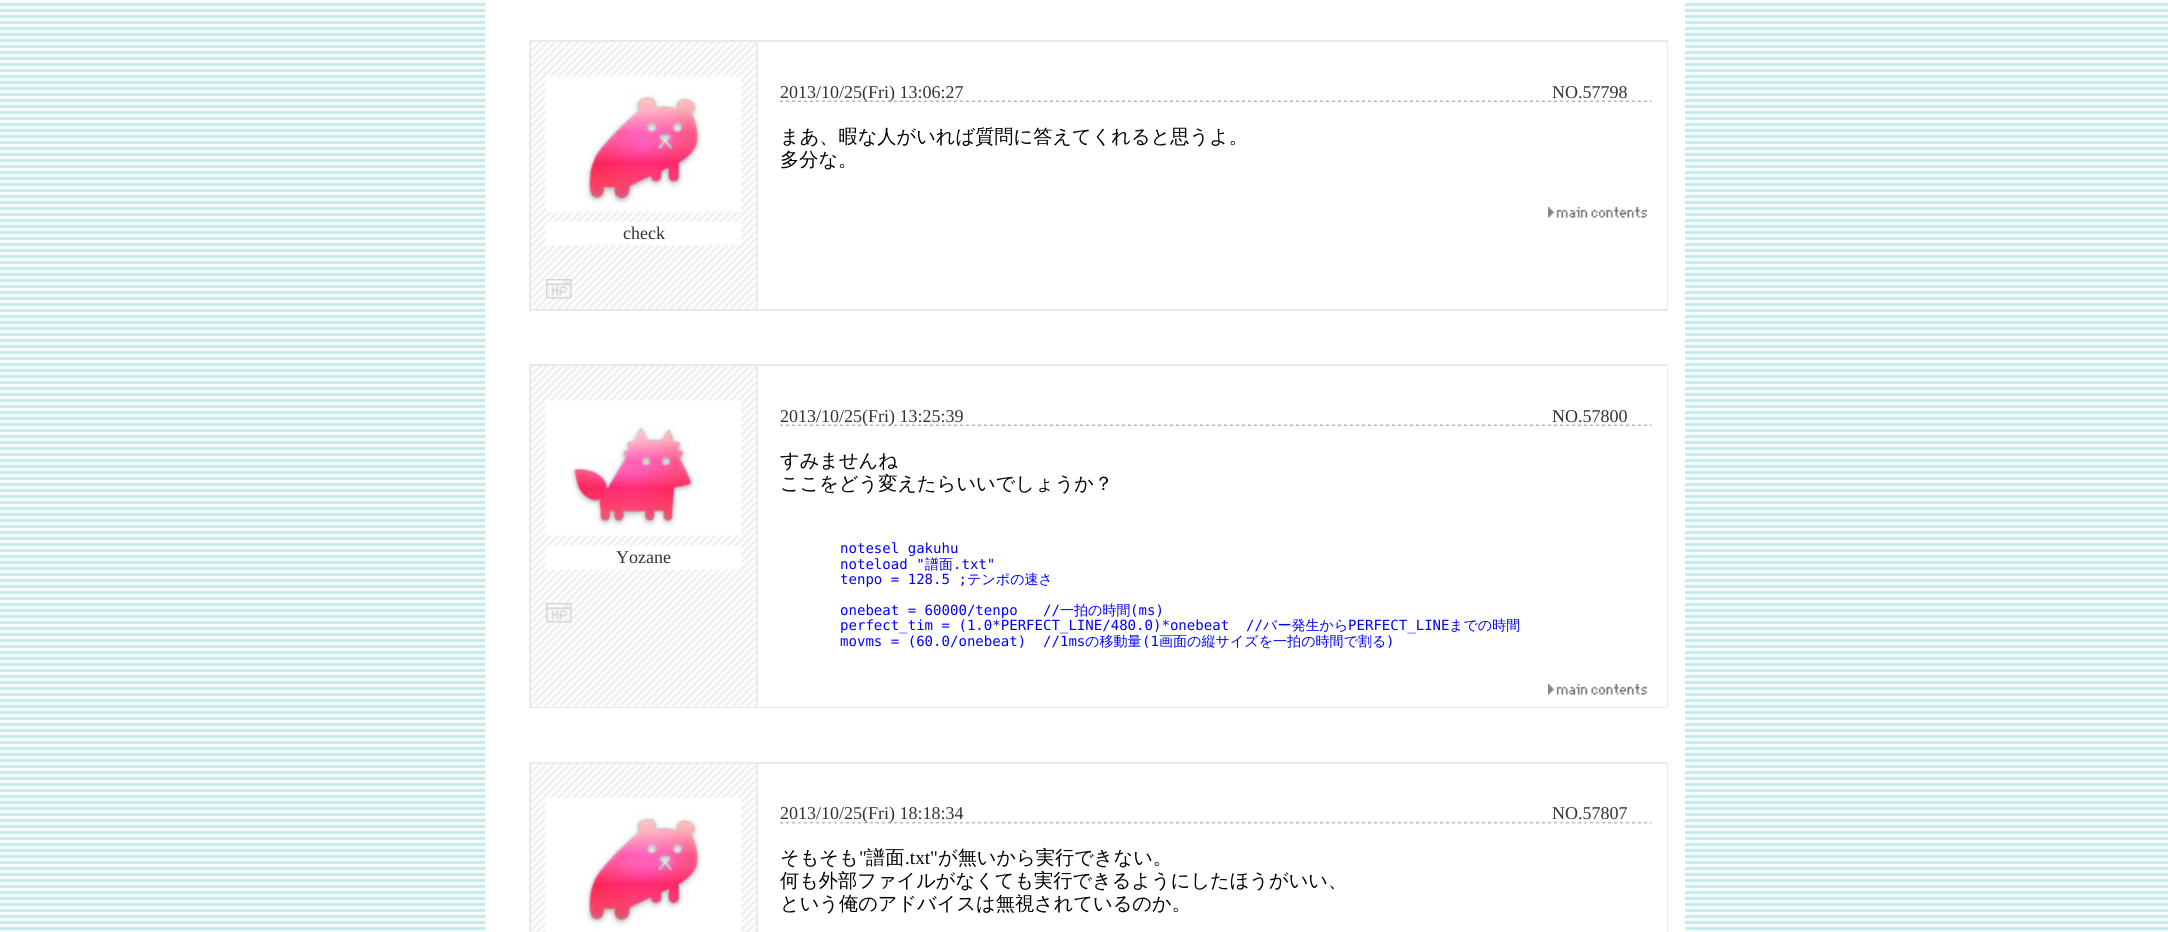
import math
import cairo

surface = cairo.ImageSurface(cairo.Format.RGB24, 2168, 932)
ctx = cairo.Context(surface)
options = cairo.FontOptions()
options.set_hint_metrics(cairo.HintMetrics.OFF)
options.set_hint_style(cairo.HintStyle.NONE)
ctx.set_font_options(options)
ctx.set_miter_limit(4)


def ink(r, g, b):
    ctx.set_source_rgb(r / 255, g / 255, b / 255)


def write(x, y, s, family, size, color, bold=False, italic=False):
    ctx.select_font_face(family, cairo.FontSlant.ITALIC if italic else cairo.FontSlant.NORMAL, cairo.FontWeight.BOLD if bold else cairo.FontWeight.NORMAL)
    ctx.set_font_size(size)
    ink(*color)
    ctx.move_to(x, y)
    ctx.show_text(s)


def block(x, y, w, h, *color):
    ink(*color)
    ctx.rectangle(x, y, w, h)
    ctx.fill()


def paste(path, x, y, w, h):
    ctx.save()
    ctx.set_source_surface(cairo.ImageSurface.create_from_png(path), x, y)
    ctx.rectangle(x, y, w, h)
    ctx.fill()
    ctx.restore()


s1 = dict(family="Liberation Serif", size=18, color=(51, 51, 51))
s2 = dict(family="WenQuanYi Zen Hei Medium", size=19.2, color=(0, 0, 0))
s3 = dict(family="DejaVu Sans Mono", size=14.05, color=(0, 0, 255))
s4 = dict(family="WenQuanYi Zen Hei Medium", size=14.05, color=(0, 0, 255))
s5 = dict(family="Liberation Serif", size=19.2, color=(0, 0, 0))

ink(255, 255, 255)
ctx.paint()
paste("pic1.png", 0, 0, 2168, 931)
block(485, 0, 1200, 931, 255, 255, 255)
block(529, 40, 1139, 271, 234, 234, 234)
block(758, 42, 909, 267, 255, 255, 255)
paste("pic2.png", 780, 100, 872, 2)
write(780, 98, "2013/10/25(Fri) 13:06:27", **s1)
write(1552, 98, "NO.57798", **s1)
write(780, 143, "まあ、暇な人がいれば質問に答えてくれると思うよ。", **s2)
write(780, 166, "多分な。", **s2)
paste("pic3.png", 1548, 207, 99, 11)
paste("pic4.png", 531, 42, 225, 267)
paste("pic5.png", 546, 76, 195, 136)
block(546, 222, 195, 23, 255, 255, 255)
write(623, 239, "check", **s1)
paste("pic6.png", 546, 279, 26, 20)
block(529, 364, 1139, 344, 234, 234, 234)
block(531, 706, 225, 1, 255, 255, 255)
paste("pic7.png", 531, 366, 225, 341)
paste("pic8.png", 546, 400, 195, 136)
block(546, 546, 195, 23, 255, 255, 255)
write(616, 563, "Yozane", **s1)
paste("pic6.png", 546, 603, 26, 20)
block(758, 366, 909, 341, 255, 255, 255)
paste("pic2.png", 780, 424, 872, 2)
write(780, 422, "2013/10/25(Fri) 13:25:39", **s1)
write(1552, 422, "NO.57800", **s1)
write(780, 467, "すみませんね", **s2)
write(780, 490, "ここをどう変えたらいいでしょうか？", **s2)
write(840, 553, "notesel gakuhu", **s3)
write(840, 569, "noteload \"", **s3)
write(925, 569, "譜面", **s4)
write(953, 569, ".txt\"", **s3)
write(840, 584, "tenpo = 128.5 ;", **s3)
write(967, 584, "テンポの速さ", **s4)
write(840, 615, "onebeat = 60000/tenpo", **s3)
write(1043, 615, "//", **s3)
write(1060, 615, "一拍の時間", **s4)
write(1130, 615, "(ms)", **s3)
write(840, 630, "perfect_tim = (1.0*PERFECT_LINE/480.0)*onebeat", **s3)
write(1246, 630, "//", **s3)
write(1263, 630, "バー発生から", **s4)
write(1348, 630, "PERFECT_LINE", **s3)
write(1449, 630, "までの時間", **s4)
write(840, 646, "movms = (60.0/onebeat)", **s3)
write(1043, 646, "//1ms", **s3)
write(1085, 646, "の移動量", **s4)
write(1142, 646, "(1", **s3)
write(1159, 646, "画面の縦サイズを一拍の時間で割る", **s4)
write(1386, 646, ")", **s3)
paste("pic3.png", 1548, 684, 99, 11)
block(529, 762, 1139, 170, 234, 234, 234)
paste("pic9.png", 531, 763, 225, 169)
paste("pic10.png", 546, 798, 195, 134)
block(758, 764, 909, 168, 255, 255, 255)
paste("pic11.png", 780, 821, 872, 3)
write(780, 819, "2013/10/25(Fri) 18:18:34", **s1)
write(1552, 819, "NO.57807", **s1)
write(780, 864, "そもそも", **s2)
write(859, 864, "\"", **s5)
write(866, 864, "譜面", **s2)
write(905, 864, ".txt\"", **s5)
write(938, 864, "が無いから実行できない。", **s2)
write(780, 887, "何も外部ファイルがなくても実行できるようにしたほうがいい、", **s2)
write(780, 910, "という俺のアドバイスは無視されているのか。", **s2)
surface.write_to_png("screenshot.png")
